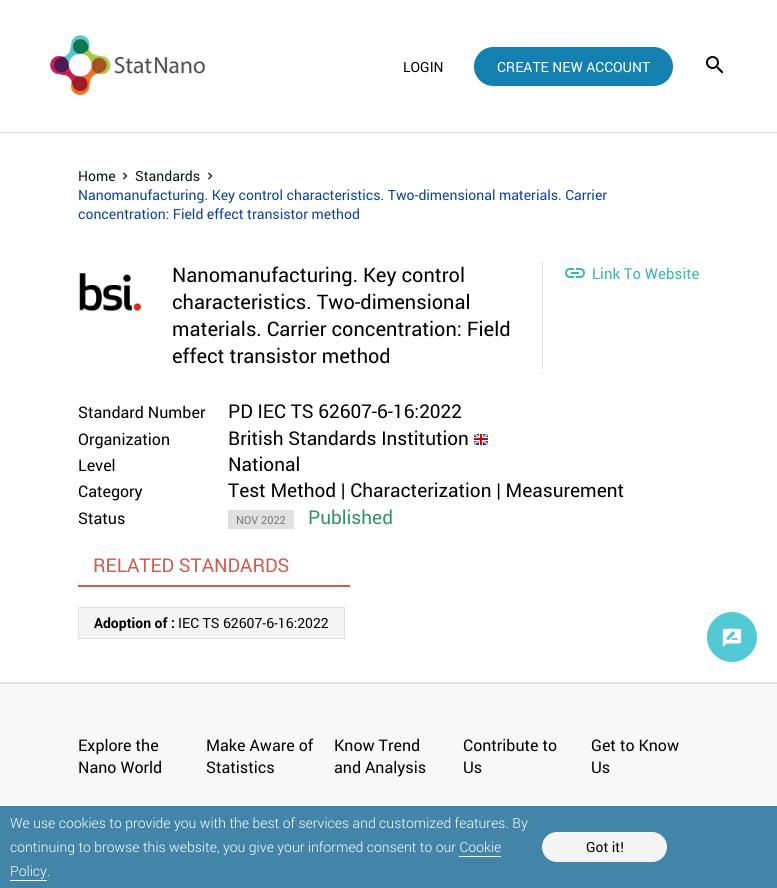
import math
import cairo

surface = cairo.ImageSurface(cairo.Format.RGB24, 777, 888)
ctx = cairo.Context(surface)
options = cairo.FontOptions()
options.set_hint_metrics(cairo.HintMetrics.OFF)
options.set_hint_style(cairo.HintStyle.NONE)
ctx.set_font_options(options)
ctx.set_miter_limit(4)


def ink(r, g, b):
    ctx.set_source_rgb(r / 255, g / 255, b / 255)


def write(x, y, s, family, size, color, bold=False, italic=False):
    ctx.select_font_face(family, cairo.FontSlant.ITALIC if italic else cairo.FontSlant.NORMAL, cairo.FontWeight.BOLD if bold else cairo.FontWeight.NORMAL)
    ctx.set_font_size(size)
    ink(*color)
    ctx.move_to(x, y)
    ctx.show_text(s)


def block(x, y, w, h, *color):
    ink(*color)
    ctx.rectangle(x, y, w, h)
    ctx.fill()


def round_path(x, y, w, h, r):
    ctx.new_sub_path()
    for i, (u, v) in enumerate([(x + w - r, y + h - r), (x + r, y + h - r), (x + r, y + r), (x + w - r, y + r)]):
        ctx.arc(u, v, r, i * math.pi / 2, (i + 1) * math.pi / 2)
    ctx.close_path()


def paste(path, x, y, w, h):
    ctx.save()
    ctx.set_source_surface(cairo.ImageSurface.create_from_png(path), x, y)
    ctx.rectangle(x, y, w, h)
    ctx.fill()
    ctx.restore()


s1 = dict(family="Roboto", size=14, color=(0, 0, 0))
s2 = dict(family="Roboto", size=14, color=(255, 255, 255))
s3 = dict(family="Roboto", size=14, color=(8, 20, 25))
s4 = dict(family="Roboto", size=14, color=(14, 66, 149))
s5 = dict(family="Roboto", size=20, color=(0, 0, 0))
s6 = dict(family="Roboto", size=15, color=(57, 182, 166))
s7 = dict(family="Roboto", size=16, color=(0, 0, 0))
s8 = dict(family="Roboto", size=19, color=(0, 0, 0))
s9 = dict(family="Roboto", size=11, color=(119, 119, 119))
s10 = dict(family="Roboto", size=19, color=(53, 145, 107))
s11 = dict(family="Roboto", size=19, color=(205, 92, 80))
s12 = dict(family="Roboto", size=14, color=(0, 0, 0), bold=True)
s13 = dict(family="Roboto Light", size=14, color=(255, 255, 255))

ink(255, 255, 255)
ctx.paint()
block(0, 132, 777, 1, 225, 225, 225)
paste("pic1.png", 50, 35, 155, 60)
write(403, 72, "LOGIN", **s1)
ink(19, 128, 176)
round_path(474, 47, 199, 39, 19.5)
ctx.fill()
write(497, 72, "CREATE NEW ACCOUNT", **s2)
paste("pic2.png", 706, 56, 18, 18)
write(78, 181, "Home", **s3)
paste("pic3.png", 123, 172, 5, 8)
write(135, 181, "Standards", **s3)
paste("pic3.png", 208, 172, 5, 8)
write(78, 200, "Nanomanufacturing. Key control characteristics. Two-dimensional materials. Carrier", **s4)
write(78, 219, "concentration: Field effect transistor method", **s4)
paste("pic4.png", 79, 273, 63, 39)
write(172, 282, "Nanomanufacturing. Key control", **s5)
write(172, 309, "characteristics. Two-dimensional", **s5)
write(172, 336, "materials. Carrier concentration: Field", **s5)
write(172, 363, "effect transistor method", **s5)
block(542, 261, 1, 108, 225, 225, 225)
paste("pic5.png", 565, 268, 20, 10)
write(592, 279, "Link To Website", **s6)
write(78, 418, "Standard Number", **s7)
write(228, 418, "PD IEC TS 62607-6-16:2022", **s8)
write(78, 445, "Organization", **s7)
write(228, 445, "British Standards Institution", **s8)
paste("pic6.png", 474, 434, 14, 11)
write(78, 471, "Level", **s7)
write(228, 471, "National", **s8)
write(78, 497, "Category", **s7)
write(228, 497, "Test Method | Characterization | Measurement", **s8)
write(78, 524, "Status", **s7)
block(228, 510, 66, 19, 225, 225, 225)
write(236, 524, "NOV 2022", **s9)
write(308, 524, "Published", **s10)
block(78, 585, 272, 2, 205, 92, 80)
write(93, 572, "RELATED STANDARDS", **s11)
ink(245, 245, 245)
ctx.rectangle(78.5, 607.5, 266, 31)
ctx.fill_preserve()
ink(225, 225, 225)
ctx.set_line_width(1)
ctx.stroke()
write(94, 628, "Adoption of :", **s12)
write(178, 628, "IEC TS 62607-6-16:2022", **s1)
ink(82, 201, 212)
ctx.new_path()
ctx.arc(732, 637, 25, 0, 2 * math.pi)
ctx.fill()
paste("pic7.png", 722, 628, 20, 19)
block(0, 684, 777, 122, 248, 248, 248)
block(0, 682, 777, 2, 225, 225, 225)
write(78, 751, "Explore the", **s7)
write(78, 773, "Nano World", **s7)
write(206, 751, "Make Aware of", **s7)
write(206, 773, "Statistics", **s7)
write(334, 751, "Know Trend", **s7)
write(334, 773, "and Analysis", **s7)
write(463, 751, "Contribute to", **s7)
write(463, 773, "Us", **s7)
write(591, 751, "Get to Know", **s7)
write(591, 773, "Us", **s7)
block(0, 806, 777, 82, 66, 133, 169)
write(10, 828, "We use cookies to provide you with the best of services and customized features. By", **s13)
write(10, 852, "continuing to browse this website, you give your informed consent to our Cookie", **s13)
write(10, 876, "Policy.", **s13)
block(459, 856, 42, 1, 245, 245, 245)
block(10, 880, 37, 1, 245, 245, 245)
round_path(542, 832, 125, 30, 15)
ctx.fill()
write(586, 852, "Got it!", **s1)
surface.write_to_png("screenshot.png")
